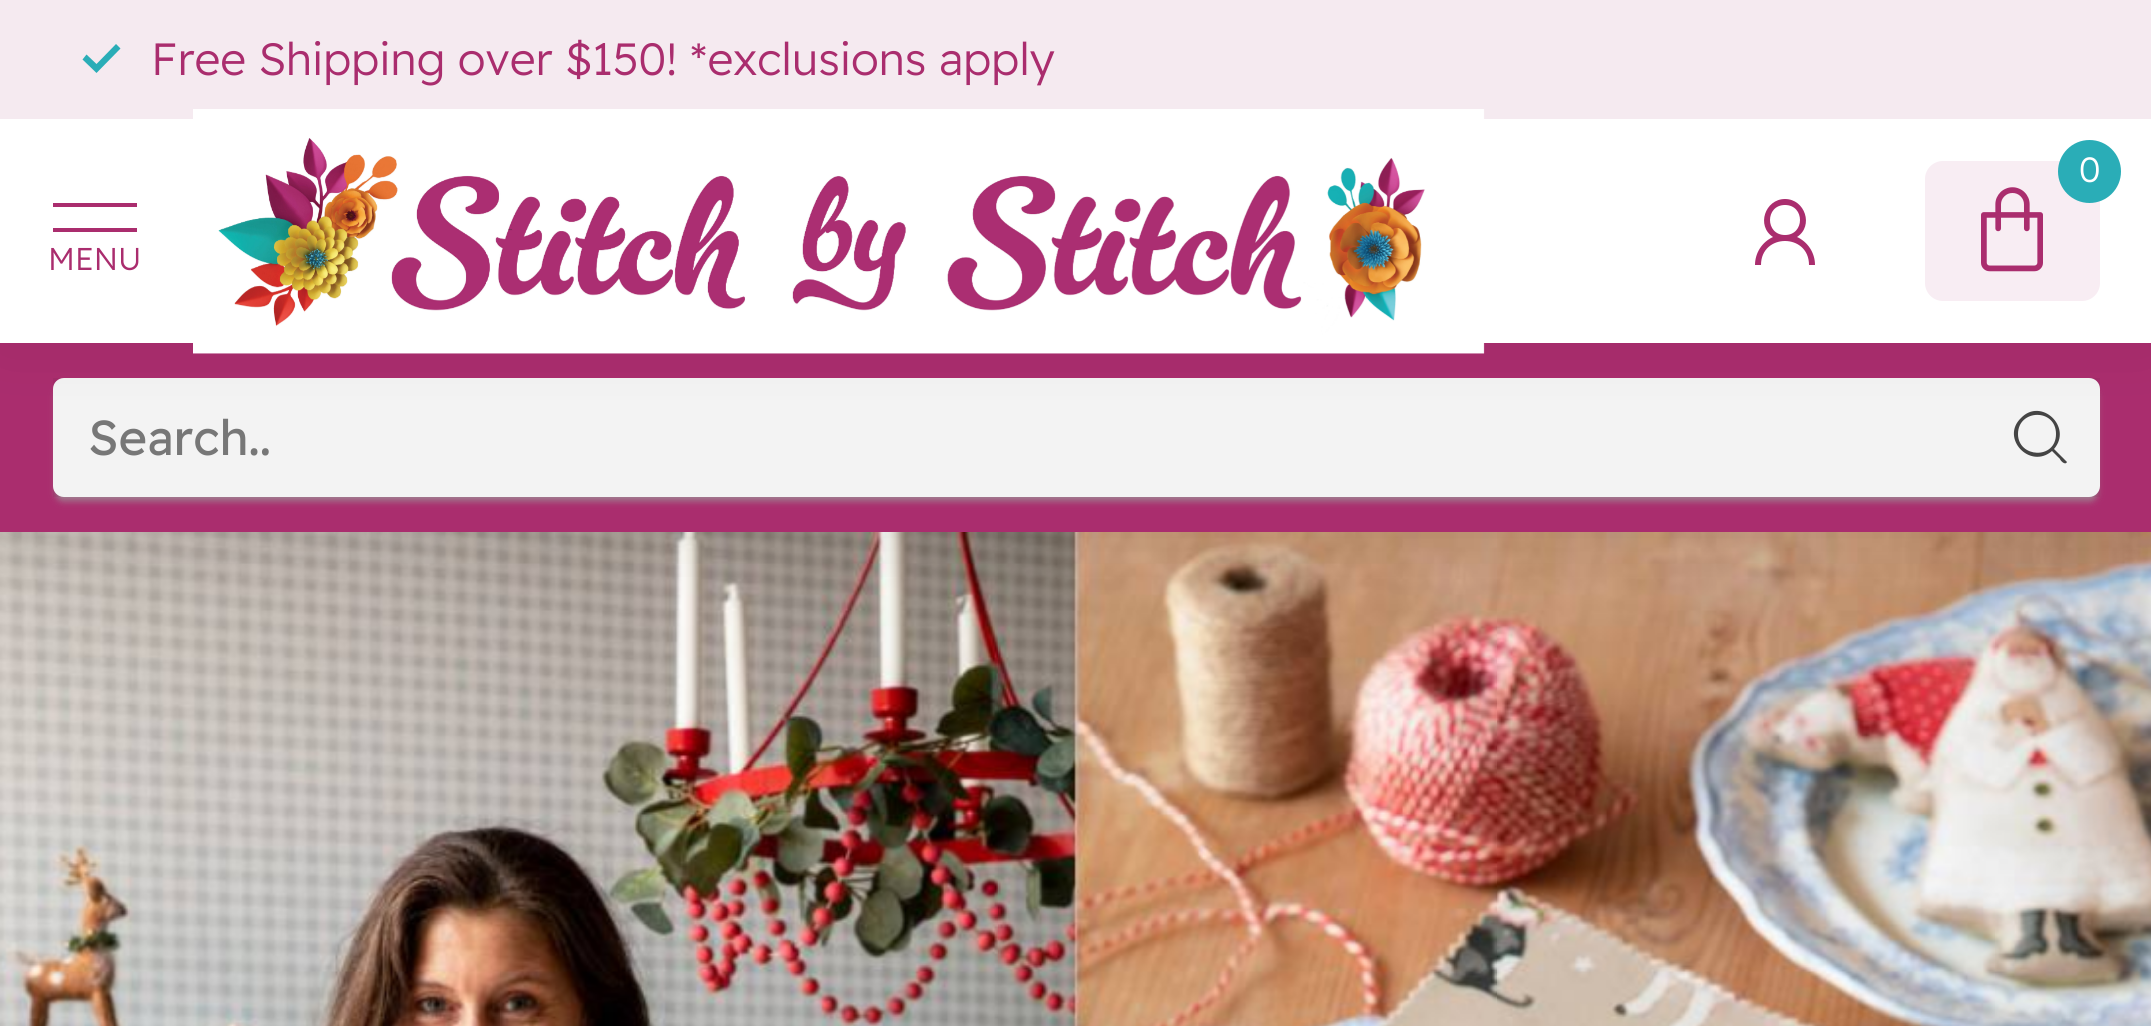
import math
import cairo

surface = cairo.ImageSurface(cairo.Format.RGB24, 2151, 1026)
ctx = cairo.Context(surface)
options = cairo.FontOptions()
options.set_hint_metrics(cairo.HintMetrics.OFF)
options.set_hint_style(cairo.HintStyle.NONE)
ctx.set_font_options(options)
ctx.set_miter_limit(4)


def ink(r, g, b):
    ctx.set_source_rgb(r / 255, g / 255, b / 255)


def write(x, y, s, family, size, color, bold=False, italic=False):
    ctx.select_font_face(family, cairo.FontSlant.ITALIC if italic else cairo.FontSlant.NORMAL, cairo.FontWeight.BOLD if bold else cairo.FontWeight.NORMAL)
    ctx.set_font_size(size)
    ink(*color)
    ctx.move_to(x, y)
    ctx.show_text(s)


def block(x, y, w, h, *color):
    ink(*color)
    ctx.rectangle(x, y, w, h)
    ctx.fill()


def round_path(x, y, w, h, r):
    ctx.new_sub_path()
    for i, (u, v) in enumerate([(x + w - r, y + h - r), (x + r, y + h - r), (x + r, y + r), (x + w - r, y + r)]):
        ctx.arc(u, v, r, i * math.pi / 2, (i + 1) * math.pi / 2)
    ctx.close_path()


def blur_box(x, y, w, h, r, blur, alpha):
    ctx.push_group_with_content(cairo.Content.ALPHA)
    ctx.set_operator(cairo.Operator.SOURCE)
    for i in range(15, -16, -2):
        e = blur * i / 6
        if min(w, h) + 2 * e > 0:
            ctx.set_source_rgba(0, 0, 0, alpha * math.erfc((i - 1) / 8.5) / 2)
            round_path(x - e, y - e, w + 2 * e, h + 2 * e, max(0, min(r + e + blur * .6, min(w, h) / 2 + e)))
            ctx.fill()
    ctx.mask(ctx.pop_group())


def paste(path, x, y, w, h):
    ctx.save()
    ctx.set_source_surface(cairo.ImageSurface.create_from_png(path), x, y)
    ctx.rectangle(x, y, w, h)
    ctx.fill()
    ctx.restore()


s1 = dict(family="Readex Pro Light", size=45.1, color=(170, 45, 110))
s2 = dict(family="Readex Pro Light", size=35, color=(255, 255, 255))
s3 = dict(family="Readex Pro Light", size=31.5, color=(170, 45, 110))
s4 = dict(family="Readex Pro", size=49, color=(119, 119, 119))

ink(255, 255, 255)
ctx.paint()
paste("pic3.png", 0, 532, 2151, 494)
ink(0, 0, 0)
blur_box(0, 343, 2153, 189, 0, 38.5, 0.08)
block(0, 343, 2151, 189, 170, 45, 110)
ink(155, 155, 155)
blur_box(56, 389, 2041, 112, 7, 3.5, 0.75)
ink(255, 255, 255)
round_path(53, 378, 2047, 119, 11)
ctx.fill()
ctx.set_source_rgba(0, 0, 0, 0.05)
ctx.rectangle(53, 378, 2047, 119)
ctx.fill()
ink(68, 68, 68)
ctx.new_path()
ctx.move_to(2066, 461)
ctx.line_to(2054, 449)
ctx.curve_to(2073, 427, 2041, 397, 2021, 418)
ctx.curve_to(2000, 438, 2030, 470, 2052, 451)
ctx.line_to(2060, 459)
ctx.curve_to(2060, 460, 2065, 466, 2067, 462)
ctx.close_path()
ctx.move_to(2018, 434)
ctx.curve_to(2018, 409, 2056, 408, 2056, 434)
ctx.curve_to(2056, 460, 2018, 458, 2018, 434)
ctx.close_path()
ctx.fill()
ink(0, 0, 0)
blur_box(0, 0, 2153, 343, 0, 35, 0.07)
block(0, 119, 2151, 224, 255, 255, 255)
block(0, 0, 2151, 119, 245, 234, 240)
ink(42, 173, 183)
ctx.new_path()
ctx.move_to(96.5, 73)
ctx.line_to(82.5, 59.5)
ctx.line_to(86.5, 54.5)
ctx.line_to(96.5, 64)
ctx.line_to(116, 44)
ctx.line_to(120.5, 48.5)
ctx.close_path()
ctx.fill()
write(151, 75, "Free Shipping over $150! *exclusions apply", **s1)
paste("pic1.png", 193, 109, 1292, 245)
ink(248, 237, 243)
round_path(1925, 161, 175, 140, 18)
ctx.fill()
ink(42, 173, 183)
ctx.arc(2089.5, 171.5, 31.5, 0, 2 * math.pi)
ctx.fill()
write(2079, 182, "0", **s2)
paste("pic2.png", 1981, 187, 62, 85)
ink(170, 45, 110)
ctx.new_path()
ctx.move_to(1785, 199)
ctx.curve_to(1765, 199, 1756, 226, 1773, 237)
ctx.curve_to(1762, 242, 1755, 253, 1755, 265)
ctx.line_to(1761, 265)
ctx.curve_to(1761, 233, 1809, 233, 1809, 265)
ctx.line_to(1815, 265)
ctx.curve_to(1815, 253, 1808, 242, 1797, 237)
ctx.curve_to(1814, 226, 1805, 199, 1785, 199)
ctx.close_path()
ctx.move_to(1785, 205)
ctx.curve_to(1805, 205, 1805, 235, 1785, 235)
ctx.curve_to(1765, 235, 1765, 205, 1785, 205)
ctx.close_path()
ctx.fill()
block(53, 203, 84, 4, 170, 45, 110)
block(53, 228, 84, 4, 170, 45, 110)
write(48, 270, "MENU", **s3)
write(88, 455, "Search..", **s4)
surface.write_to_png("screenshot.png")
